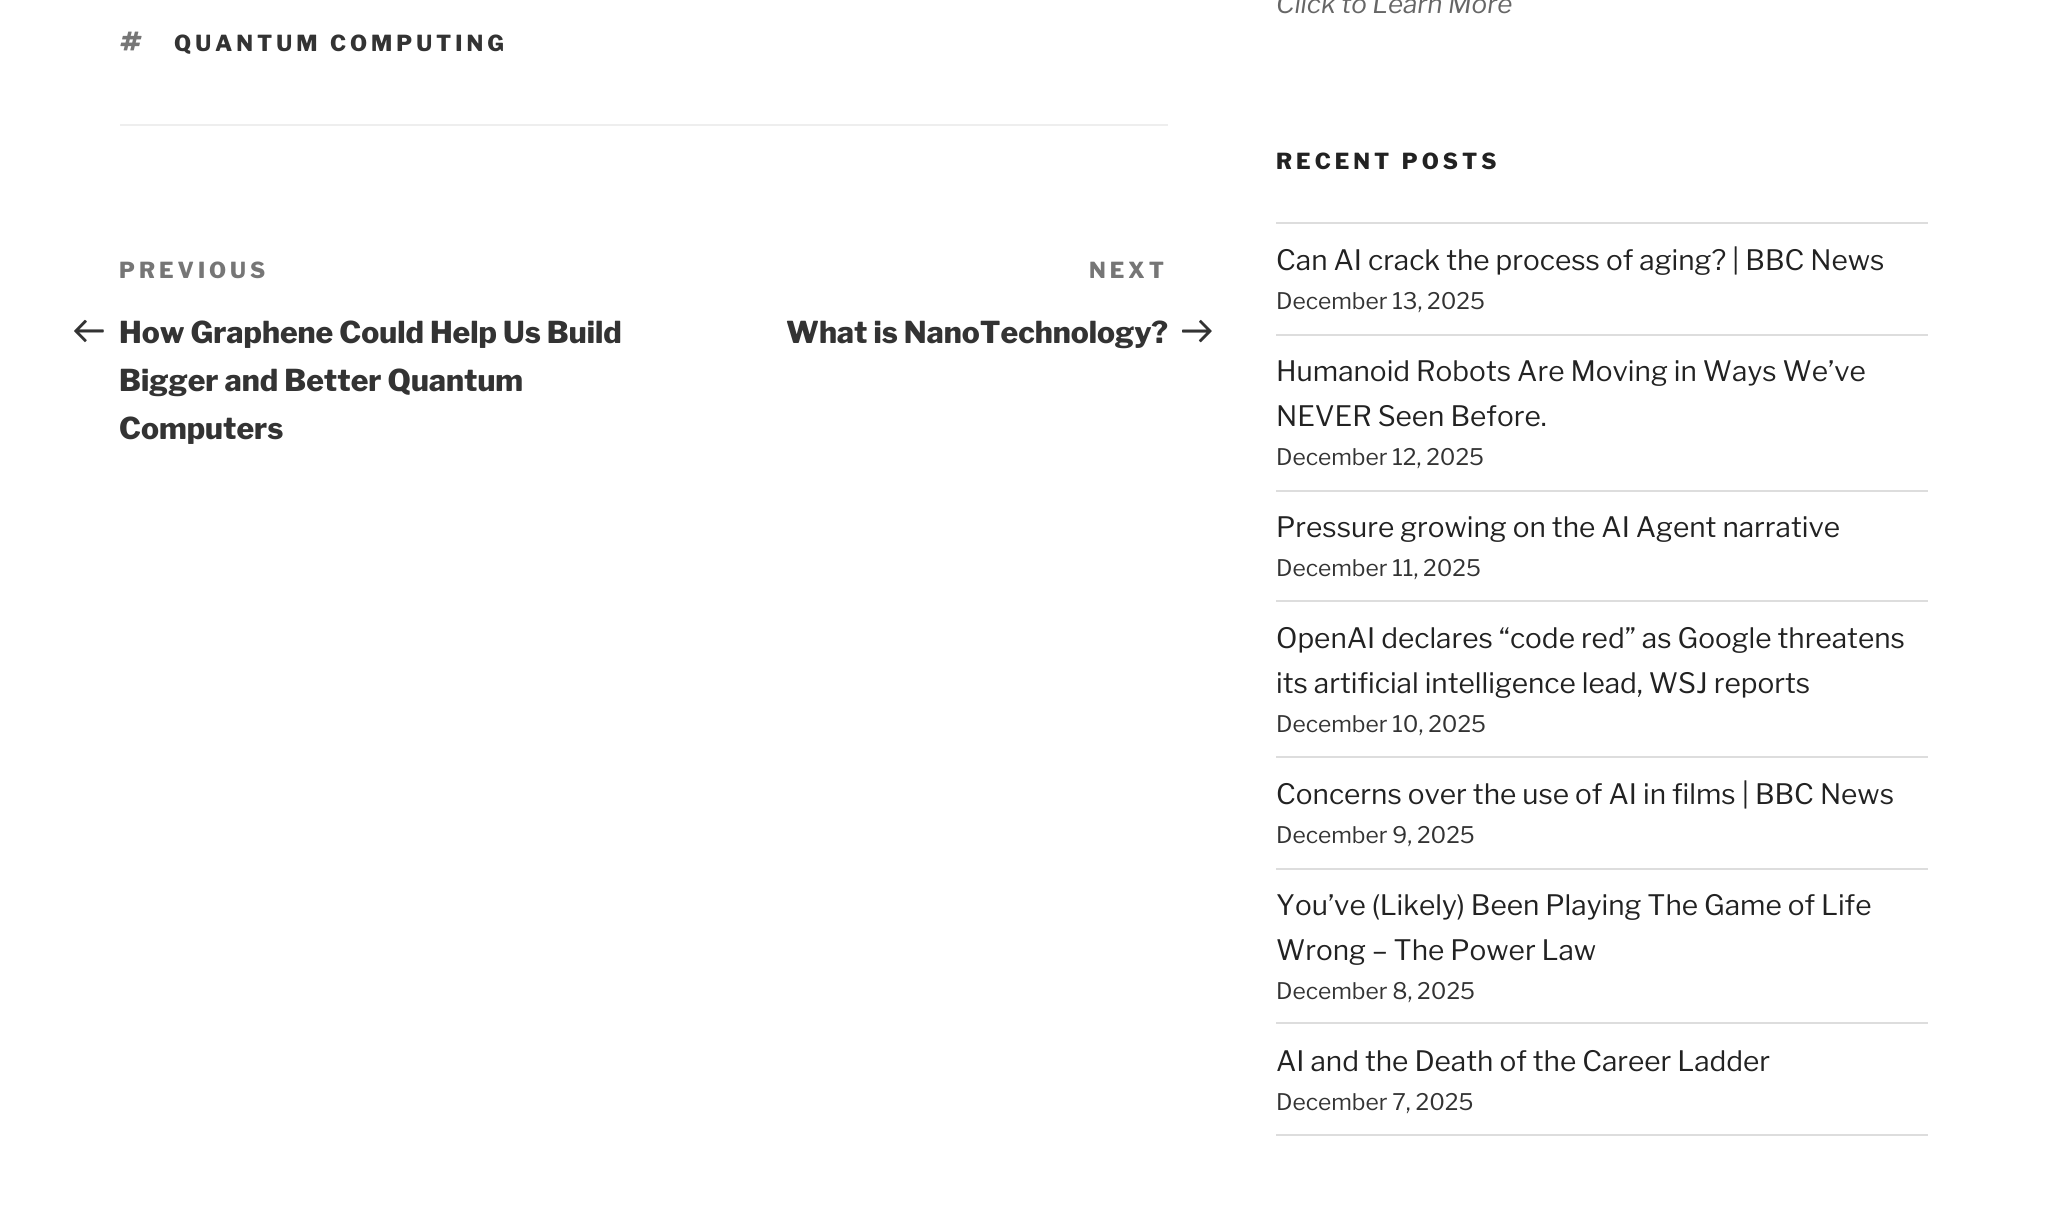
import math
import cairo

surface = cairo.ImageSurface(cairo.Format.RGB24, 2045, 1212)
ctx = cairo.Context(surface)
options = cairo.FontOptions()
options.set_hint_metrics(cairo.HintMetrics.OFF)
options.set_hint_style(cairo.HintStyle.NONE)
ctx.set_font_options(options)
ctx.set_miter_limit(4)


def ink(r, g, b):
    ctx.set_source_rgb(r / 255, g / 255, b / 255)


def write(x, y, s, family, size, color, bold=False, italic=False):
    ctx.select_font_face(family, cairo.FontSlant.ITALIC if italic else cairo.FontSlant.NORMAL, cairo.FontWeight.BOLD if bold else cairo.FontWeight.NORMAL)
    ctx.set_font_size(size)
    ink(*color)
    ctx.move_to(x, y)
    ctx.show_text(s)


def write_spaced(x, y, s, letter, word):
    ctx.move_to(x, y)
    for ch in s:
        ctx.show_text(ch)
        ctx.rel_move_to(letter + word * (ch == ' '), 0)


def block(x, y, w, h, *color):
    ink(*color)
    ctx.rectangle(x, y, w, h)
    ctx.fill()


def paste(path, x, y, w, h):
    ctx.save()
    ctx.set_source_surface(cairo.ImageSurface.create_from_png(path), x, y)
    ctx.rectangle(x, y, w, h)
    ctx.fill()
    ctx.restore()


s1 = dict(family="Libre Franklin Thin", size=30, color=(51, 51, 51))
s2 = dict(family="Libre Franklin Thin", size=26, color=(102, 102, 102), italic=True)
s3 = dict(family="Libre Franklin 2 Thin", size=28, color=(34, 34, 34))
s4 = dict(family="Libre Franklin 2 Thin", size=22.75, color=(51, 51, 51))

ink(255, 255, 255)
ctx.paint()
block(120, 124, 1048, 2, 238, 238, 238)
paste("pic1.png", 120, 31, 22, 20)
ctx.select_font_face("Libre Franklin Thin")
ctx.set_font_size(22)
ink(51, 51, 51)
write_spaced(174, 51, "QUANTUM COMPUTING", 4, 0)
ink(118, 118, 118)
write_spaced(119, 278, "PREVIOUS", 4, 0)
paste("pic2.png", 74, 319, 30, 24)
write(119, 343, "How Graphene Could Help Us Build", **s1)
write(119, 391, "Bigger and Better Quantum", **s1)
write(119, 439, "Computers", **s1)
ctx.set_font_size(22)
ink(118, 118, 118)
write_spaced(1089, 278, "NEXT", 4, 0)
write(786, 343, "What is NanoTechnology?", **s1)
paste("pic3.png", 1182, 319, 30, 24)
write(1276, 13, "Click to Learn More", **s2)
ctx.select_font_face("Libre Franklin Thin")
ctx.set_font_size(22)
ink(34, 34, 34)
write_spaced(1276, 169, "RECENT POSTS", 4, 0)
block(1276, 222, 652, 2, 221, 221, 221)
block(1276, 334, 652, 2, 221, 221, 221)
write(1276, 270, "Can AI crack the process of aging? | BBC News", **s3)
write(1276, 309, "December 13, 2025", **s4)
block(1276, 490, 652, 2, 221, 221, 221)
write(1276, 381, "Humanoid Robots Are Moving in Ways We’ve", **s3)
write(1276, 426, "NEVER Seen Before.", **s3)
write(1276, 465, "December 12, 2025", **s4)
block(1276, 600, 652, 2, 221, 221, 221)
write(1276, 537, "Pressure growing on the AI Agent narrative", **s3)
write(1276, 576, "December 11, 2025", **s4)
block(1276, 756, 652, 2, 221, 221, 221)
write(1276, 648, "OpenAI declares “code red” as Google threatens", **s3)
write(1276, 693, "its artificial intelligence lead, WSJ reports", **s3)
write(1276, 732, "December 10, 2025", **s4)
block(1276, 868, 652, 2, 221, 221, 221)
write(1276, 804, "Concerns over the use of AI in films | BBC News", **s3)
write(1276, 843, "December 9, 2025", **s4)
block(1276, 1022, 652, 2, 221, 221, 221)
write(1276, 915, "You’ve (Likely) Been Playing The Game of Life", **s3)
write(1276, 960, "Wrong – The Power Law", **s3)
write(1276, 999, "December 8, 2025", **s4)
block(1276, 1134, 652, 2, 221, 221, 221)
write(1276, 1071, "AI and the Death of the Career Ladder", **s3)
write(1276, 1110, "December 7, 2025", **s4)
surface.write_to_png("screenshot.png")
